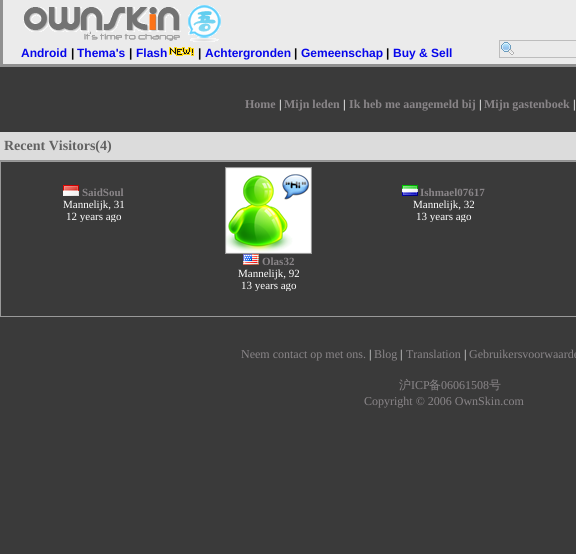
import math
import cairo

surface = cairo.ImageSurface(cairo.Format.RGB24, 576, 554)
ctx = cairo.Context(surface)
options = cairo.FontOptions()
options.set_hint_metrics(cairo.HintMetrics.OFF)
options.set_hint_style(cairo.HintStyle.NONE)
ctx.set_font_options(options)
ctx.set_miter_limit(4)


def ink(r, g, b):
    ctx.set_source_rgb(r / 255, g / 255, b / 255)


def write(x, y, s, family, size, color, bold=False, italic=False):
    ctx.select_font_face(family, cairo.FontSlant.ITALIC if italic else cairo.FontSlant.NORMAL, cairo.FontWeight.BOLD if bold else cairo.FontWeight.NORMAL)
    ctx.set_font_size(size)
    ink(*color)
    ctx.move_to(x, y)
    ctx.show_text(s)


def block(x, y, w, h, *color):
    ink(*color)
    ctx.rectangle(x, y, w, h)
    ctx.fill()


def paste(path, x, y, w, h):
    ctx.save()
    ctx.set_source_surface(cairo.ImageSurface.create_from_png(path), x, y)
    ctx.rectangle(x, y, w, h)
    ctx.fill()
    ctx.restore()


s1 = dict(family="Liberation Sans", size=12, color=(6, 6, 235), bold=True)
s2 = dict(family="Liberation Sans", size=12, color=(6, 6, 6), bold=True)
s3 = dict(family="Liberation Serif", size=12, color=(137, 133, 136), bold=True)
s4 = dict(family="Liberation Serif", size=12, color=(255, 255, 255), bold=True)
s5 = dict(family="Liberation Serif", size=14, color=(98, 98, 98), bold=True)
s6 = dict(family="Liberation Serif", size=11, color=(137, 133, 136), bold=True)
s7 = dict(family="Liberation Serif", size=11, color=(255, 255, 255))
s8 = dict(family="Liberation Serif", size=12, color=(137, 133, 136))
s9 = dict(family="Liberation Serif", size=12, color=(255, 255, 255))
s10 = dict(family="WenQuanYi Zen Hei Medium", size=12, color=(137, 133, 136))

ink(58, 58, 58)
ctx.paint()
block(3, 0, 573, 64, 235, 235, 235)
block(0, 64, 576, 3, 144, 144, 144)
block(0, 0, 3, 67, 144, 144, 144)
paste("pic1.png", 23, 5, 198, 37)
write(21, 57, "Android", **s1)
write(71, 57, "|", **s2)
write(77, 57, "Thema's", **s1)
write(129, 57, "|", **s2)
write(136, 57, "Flash", **s1)
paste("pic2.png", 169, 47, 25, 9)
write(198, 57, "|", **s2)
write(205, 57, "Achtergronden", **s1)
write(294, 57, "|", **s2)
write(301, 57, "Gemeenschap", **s1)
write(386, 57, "|", **s2)
write(393, 57, "Buy & Sell", **s1)
paste("pic3.png", 501, 42, 13, 13)
ctx.rectangle(499.5, 40.5, 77, 17)
ink(189, 189, 189)
ctx.set_line_width(1)
ctx.stroke()
write(245, 108, "Home", **s3)
write(279, 108, "|", **s4)
write(284, 108, "Mijn leden", **s3)
write(343, 108, "|", **s4)
write(349, 108, "Ik heb me aangemeld bij", **s3)
write(479, 108, "|", **s4)
write(484, 108, "Mijn gastenboek", **s3)
write(573, 108, "|", **s4)
block(0, 132, 576, 28, 220, 220, 220)
block(0, 160, 576, 1, 144, 144, 144)
write(4, 150, "Recent Visitors(4)", **s5)
ctx.rectangle(0.5, 161.5, 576, 155)
ink(153, 153, 153)
ctx.stroke()
paste("pic4.png", 63, 185, 16, 11)
write(82, 196, "SaidSoul", **s6)
write(63, 208, "Mannelijk, 31", **s7)
ctx.save()
ctx.rectangle(10, 167, 167, 55)
ctx.clip()
write(66, 220, "12 years ago", **s7)
ctx.restore()
paste("pic5.png", 402, 185, 16, 11)
write(420, 196, "Ishmael07617", **s6)
write(413, 208, "Mannelijk, 32", **s7)
ctx.save()
ctx.rectangle(360, 167, 167, 55)
ctx.clip()
write(416, 220, "13 years ago", **s7)
ctx.restore()
ctx.rectangle(225.5, 167.5, 86, 86)
ink(153, 153, 153)
ctx.stroke()
paste("pic6.png", 226, 168, 85, 85)
paste("pic7.png", 243, 254, 16, 11)
write(262, 265, "Olas32", **s6)
write(238, 277, "Mannelijk, 92", **s7)
ctx.save()
ctx.rectangle(185, 167, 167, 124)
ctx.clip()
write(241, 289, "13 years ago", **s7)
ctx.restore()
write(241, 358, "Neem contact op met ons.", **s8)
write(369, 358, "|", **s9)
write(374, 358, "Blog", **s8)
write(400, 358, "|", **s9)
write(406, 358, "Translation", **s8)
write(464, 358, "|", **s9)
write(469, 358, "Gebruikersvoorwaarde", **s8)
write(399, 389, "沪", **s10)
write(411, 389, "ICP", **s8)
write(429, 389, "备", **s10)
write(441, 389, "06061508", **s8)
write(489, 389, "号", **s10)
write(364, 405, "Copyright © 2006 OwnSkin.com", **s8)
surface.write_to_png("screenshot.png")
